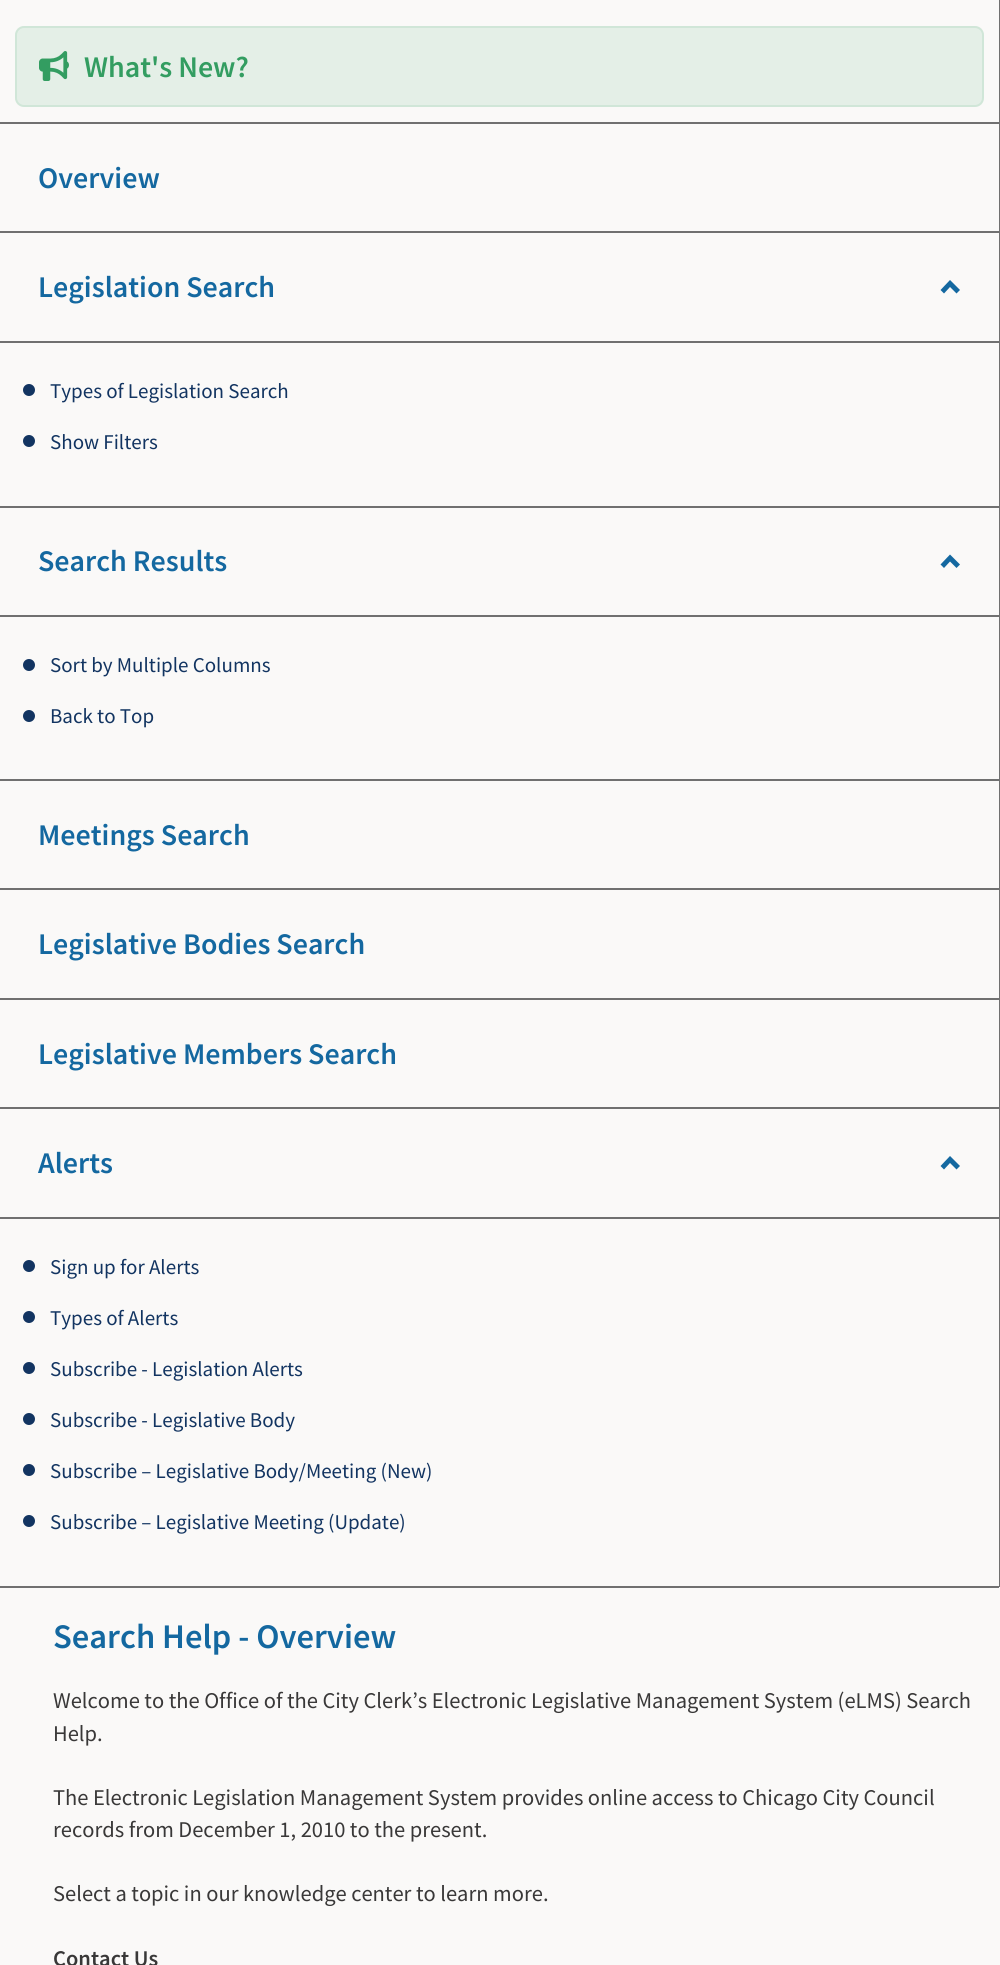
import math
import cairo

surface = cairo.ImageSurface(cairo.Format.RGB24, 1000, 1965)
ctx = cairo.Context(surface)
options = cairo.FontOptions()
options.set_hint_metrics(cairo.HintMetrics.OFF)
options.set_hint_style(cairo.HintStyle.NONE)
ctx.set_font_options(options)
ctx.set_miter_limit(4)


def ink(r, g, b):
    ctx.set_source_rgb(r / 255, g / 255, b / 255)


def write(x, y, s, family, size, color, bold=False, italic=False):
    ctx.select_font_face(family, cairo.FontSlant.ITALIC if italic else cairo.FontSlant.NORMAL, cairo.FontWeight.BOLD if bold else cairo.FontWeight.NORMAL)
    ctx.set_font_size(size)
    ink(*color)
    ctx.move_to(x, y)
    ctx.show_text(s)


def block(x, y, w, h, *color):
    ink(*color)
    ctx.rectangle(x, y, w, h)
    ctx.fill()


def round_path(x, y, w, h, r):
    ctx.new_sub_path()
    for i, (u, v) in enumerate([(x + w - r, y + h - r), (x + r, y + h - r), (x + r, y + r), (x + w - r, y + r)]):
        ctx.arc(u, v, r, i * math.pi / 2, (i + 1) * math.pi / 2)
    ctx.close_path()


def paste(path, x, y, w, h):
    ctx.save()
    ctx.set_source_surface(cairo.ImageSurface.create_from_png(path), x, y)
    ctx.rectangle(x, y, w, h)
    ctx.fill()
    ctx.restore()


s1 = dict(family="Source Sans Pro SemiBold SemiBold", size=30, color=(51, 157, 97))
s2 = dict(family="Source Sans Pro SemiBold SemiBold", size=30, color=(20, 104, 160))
s3 = dict(family="Source Sans Pro", size=21, color=(18, 52, 97))
s4 = dict(family="Source Sans Pro SemiBold SemiBold", size=34.5, color=(20, 104, 160))
s5 = dict(family="Source Sans Pro", size=22.5, color=(57, 56, 56))
s6 = dict(family="Source Sans Pro SemiBold SemiBold", size=22.5, color=(57, 56, 56))

ink(250, 249, 248)
ctx.paint()
block(999, 0, 1, 1587, 112, 112, 112)
ink(228, 239, 231)
round_path(15, 26, 969, 81, 9)
ctx.fill()
round_path(16, 27, 967, 79, 8)
ctx.set_source_rgba(0.2, 0.616, 0.38, 0.11)
ctx.stroke()
paste("pic1.png", 39, 51, 30, 30)
write(84, 77, "What's New?", **s1)
block(0, 122, 999, 2, 112, 112, 112)
write(38, 188, "Overview", **s2)
block(0, 231, 999, 2, 112, 112, 112)
block(0, 341, 999, 2, 112, 112, 112)
write(38, 297, "Legislation Search", **s2)
ctx.new_path()
ctx.move_to(960, 290)
ctx.line_to(956.5, 293.5)
ctx.line_to(950, 287)
ctx.line_to(944, 293.5)
ctx.line_to(940.5, 290)
ctx.line_to(950, 280)
ctx.close_path()
ctx.fill()
block(0, 506, 999, 2, 112, 112, 112)
ink(18, 52, 97)
ctx.arc(29, 390, 6, 0, 2 * math.pi)
ctx.fill()
write(50, 398, "Types of Legislation Search", **s3)
ctx.new_path()
ctx.arc(29, 441, 6, 0, 2 * math.pi)
ctx.fill()
write(50, 449, "Show Filters", **s3)
block(0, 615, 999, 2, 112, 112, 112)
write(38, 571, "Search Results", **s2)
ctx.new_path()
ctx.move_to(960, 564.5)
ctx.line_to(956.5, 568)
ctx.line_to(950, 561.5)
ctx.line_to(944, 568)
ctx.line_to(940.5, 564.5)
ctx.line_to(950, 554.5)
ctx.close_path()
ctx.fill()
block(0, 779, 999, 2, 112, 112, 112)
ink(18, 52, 97)
ctx.arc(29, 665, 6, 0, 2 * math.pi)
ctx.fill()
write(50, 672, "Sort by Multiple Columns", **s3)
ctx.new_path()
ctx.arc(29, 716, 6, 0, 2 * math.pi)
ctx.fill()
write(50, 723, "Back to Top", **s3)
block(0, 888, 999, 2, 112, 112, 112)
write(38, 845, "Meetings Search", **s2)
block(0, 998, 999, 2, 112, 112, 112)
write(38, 954, "Legislative Bodies Search", **s2)
block(0, 1107, 999, 2, 112, 112, 112)
write(38, 1064, "Legislative Members Search", **s2)
block(0, 1217, 999, 2, 112, 112, 112)
write(38, 1173, "Alerts", **s2)
ctx.new_path()
ctx.move_to(960, 1166)
ctx.line_to(956.5, 1169.5)
ctx.line_to(950, 1163)
ctx.line_to(944, 1169.5)
ctx.line_to(940.5, 1166)
ctx.line_to(950, 1156)
ctx.close_path()
ctx.fill()
block(0, 1586, 999, 2, 112, 112, 112)
ink(18, 52, 97)
ctx.arc(29, 1266, 6, 0, 2 * math.pi)
ctx.fill()
write(50, 1274, "Sign up for Alerts", **s3)
ctx.new_path()
ctx.arc(29, 1317, 6, 0, 2 * math.pi)
ctx.fill()
write(50, 1325, "Types of Alerts", **s3)
ctx.new_path()
ctx.arc(29, 1368, 6, 0, 2 * math.pi)
ctx.fill()
write(50, 1376, "Subscribe - Legislation Alerts", **s3)
ctx.new_path()
ctx.arc(29, 1419, 6, 0, 2 * math.pi)
ctx.fill()
write(50, 1427, "Subscribe - Legislative Body", **s3)
ctx.new_path()
ctx.arc(29, 1470, 6, 0, 2 * math.pi)
ctx.fill()
write(50, 1478, "Subscribe – Legislative Body/Meeting (New)", **s3)
ctx.new_path()
ctx.arc(29, 1521, 6, 0, 2 * math.pi)
ctx.fill()
write(50, 1529, "Subscribe – Legislative Meeting (Update)", **s3)
write(53, 1648, "Search Help - Overview", **s4)
write(53, 1708, "Welcome to the Office of the City Clerk’s Electronic Legislative Management System (eLMS) Search", **s5)
write(53, 1741, "Help.", **s5)
write(53, 1805, "The Electronic Legislation Management System provides online access to Chicago City Council", **s5)
write(53, 1837, "records from December 1, 2010 to the present.", **s5)
write(53, 1901, "Select a topic in our knowledge center to learn more.", **s5)
write(53, 1966, "Contact Us", **s6)
surface.write_to_png("screenshot.png")
